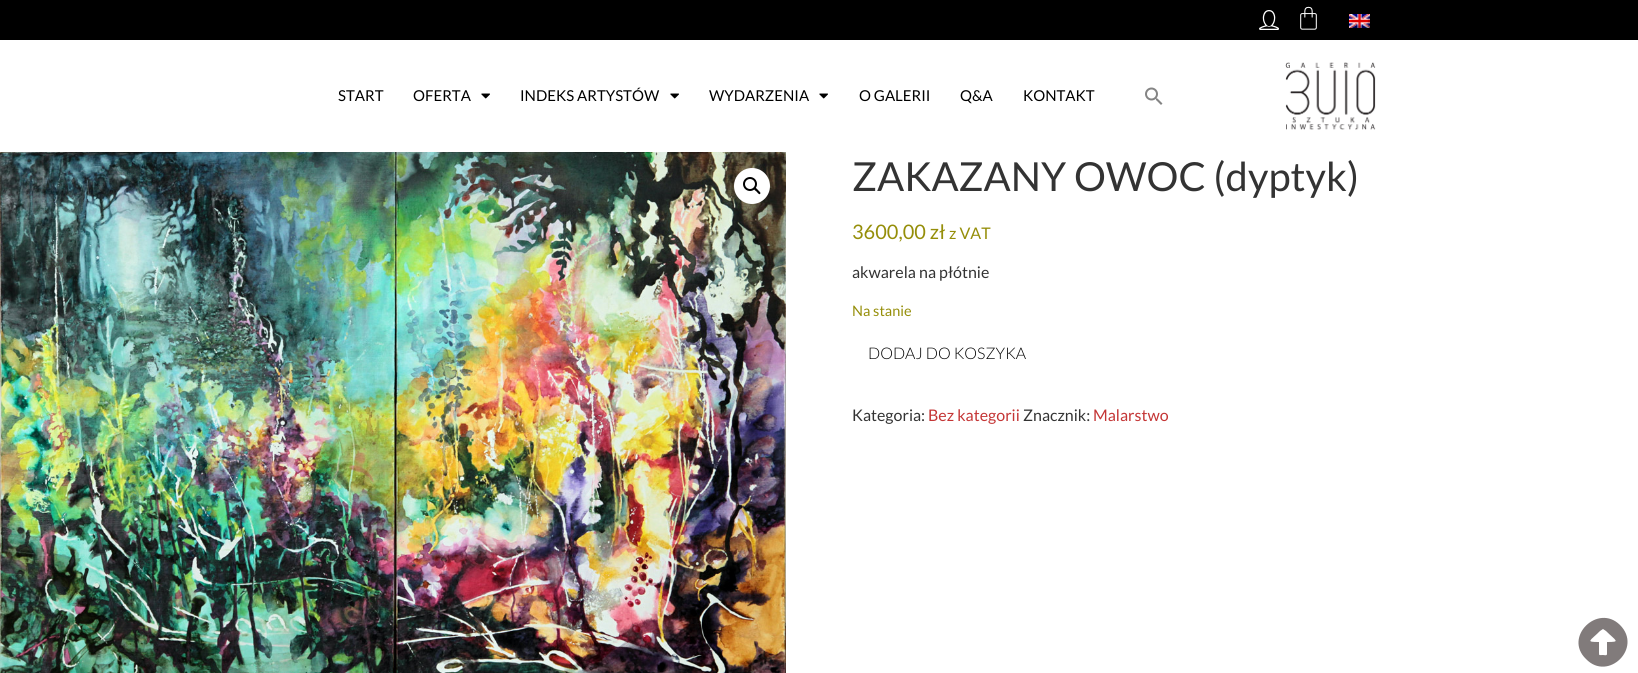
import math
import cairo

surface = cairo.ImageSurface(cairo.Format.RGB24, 1638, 673)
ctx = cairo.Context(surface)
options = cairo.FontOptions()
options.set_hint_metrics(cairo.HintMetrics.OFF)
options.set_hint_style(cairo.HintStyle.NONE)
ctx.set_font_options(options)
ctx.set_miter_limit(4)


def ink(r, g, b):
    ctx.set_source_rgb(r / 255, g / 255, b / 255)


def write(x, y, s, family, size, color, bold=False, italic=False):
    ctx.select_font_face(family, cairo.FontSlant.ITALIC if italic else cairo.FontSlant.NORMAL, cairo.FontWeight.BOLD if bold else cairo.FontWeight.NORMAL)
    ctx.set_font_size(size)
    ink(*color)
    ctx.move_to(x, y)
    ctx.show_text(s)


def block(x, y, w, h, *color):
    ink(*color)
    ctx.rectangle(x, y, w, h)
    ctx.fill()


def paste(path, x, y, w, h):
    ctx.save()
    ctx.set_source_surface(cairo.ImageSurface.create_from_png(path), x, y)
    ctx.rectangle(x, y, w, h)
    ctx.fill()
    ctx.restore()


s1 = dict(family="Lato", size=15, color=(0, 0, 0))
s2 = dict(family="Lato", size=40, color=(51, 51, 51))
s3 = dict(family="Lato", size=20, color=(149, 142, 9))
s4 = dict(family="Lato", size=16, color=(149, 142, 9))
s5 = dict(family="Lato", size=16, color=(51, 51, 51))
s6 = dict(family="Lato", size=14.5, color=(149, 142, 9))
s7 = dict(family="Lato Light", size=16, color=(0, 0, 0))
s8 = dict(family="Lato", size=16, color=(196, 53, 53))

ink(255, 255, 255)
ctx.paint()
block(0, 0, 1638, 40, 0, 0, 0)
paste("pic1.png", 1259, 10, 20, 20)
paste("pic2.png", 1300, 6, 17, 24)
paste("pic3.png", 1349, 14, 21, 14)
write(338, 101, "START", **s1)
write(413, 101, "OFERTA", **s1)
paste("pic4.png", 481, 93, 9, 6)
write(520, 101, "INDEKS ARTYSTÓW", **s1)
paste("pic4.png", 670, 93, 9, 6)
write(709, 101, "WYDARZENIA", **s1)
paste("pic4.png", 819, 93, 9, 6)
write(859, 101, "O GALERII", **s1)
write(960, 101, "Q&A", **s1)
write(1023, 101, "KONTAKT", **s1)
paste("pic5.png", 1145, 87, 18, 18)
paste("pic6.png", 1285, 62, 91, 68)
paste("pic7.png", 0, 152, 786, 521)
ink(255, 255, 255)
ctx.arc(752, 186, 18, 0, 2 * math.pi)
ctx.fill()
ctx.arc(750, 184, 6, 0, 2 * math.pi)
ink(0, 0, 0)
ctx.stroke()
ctx.new_path()
ctx.move_to(754.5, 188)
ctx.curve_to(755.5, 187, 757.5, 189.5, 758, 190)
ctx.curve_to(758.5, 191, 761.5, 192.5, 760, 194)
ctx.curve_to(759, 195, 757, 192, 756.5, 191.5)
ctx.curve_to(756, 191, 753, 189.5, 754.5, 188)
ctx.close_path()
ctx.fill()
write(852, 191, "ZAKAZANY OWOC (dyptyk)", **s2)
write(852, 239, "3600,00 zł", **s3)
write(949, 239, "z VAT", **s4)
write(852, 278, "akwarela na płótnie", **s5)
write(852, 316, "Na stanie", **s6)
write(868, 359, "DODAJ DO KOSZYKA", **s7)
write(852, 421, "Kategoria:", **s5)
write(928, 421, "Bez kategorii", **s8)
write(1023, 421, "Znacznik:", **s5)
write(1093, 421, "Malarstwo", **s8)
ink(129, 123, 123)
ctx.new_path()
ctx.move_to(1586, 659)
ctx.curve_to(1563, 637, 1598, 603, 1620, 625)
ctx.curve_to(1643, 648, 1608, 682, 1586, 659)
ctx.close_path()
ctx.move_to(1607, 654)
ctx.line_to(1607, 642)
ctx.curve_to(1621, 642, 1616, 641, 1606, 631)
ctx.line_to(1603, 629)
ctx.line_to(1600, 631)
ctx.curve_to(1590, 641, 1585, 642, 1599, 642)
ctx.line_to(1599, 652)
ctx.curve_to(1599, 656, 1599, 655, 1603, 655)
ctx.curve_to(1604, 655, 1607, 656, 1607, 654)
ctx.close_path()
ctx.fill()
surface.write_to_png("screenshot.png")
